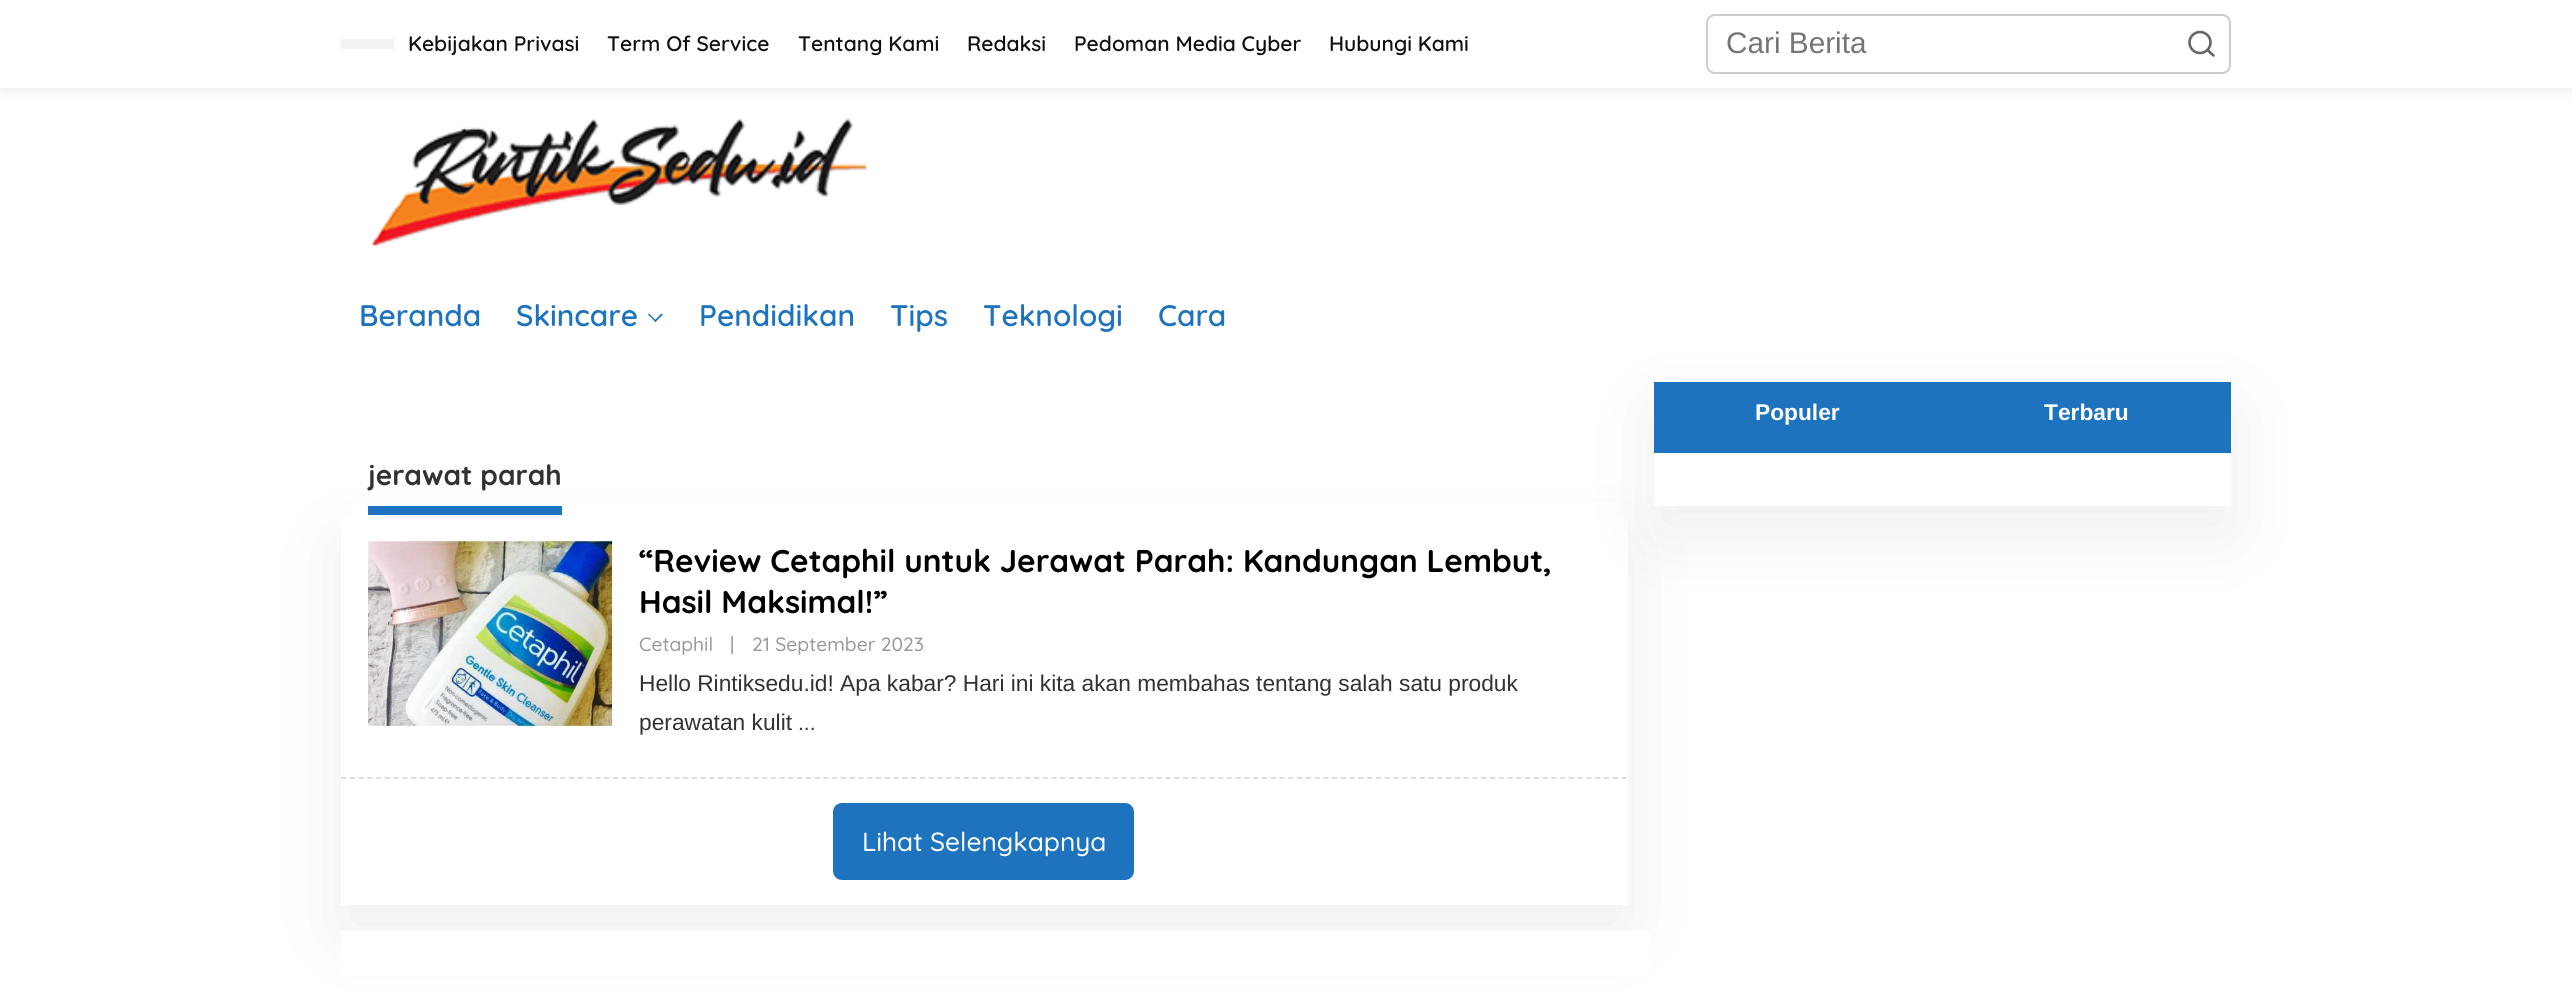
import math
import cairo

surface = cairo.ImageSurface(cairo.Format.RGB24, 2572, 995)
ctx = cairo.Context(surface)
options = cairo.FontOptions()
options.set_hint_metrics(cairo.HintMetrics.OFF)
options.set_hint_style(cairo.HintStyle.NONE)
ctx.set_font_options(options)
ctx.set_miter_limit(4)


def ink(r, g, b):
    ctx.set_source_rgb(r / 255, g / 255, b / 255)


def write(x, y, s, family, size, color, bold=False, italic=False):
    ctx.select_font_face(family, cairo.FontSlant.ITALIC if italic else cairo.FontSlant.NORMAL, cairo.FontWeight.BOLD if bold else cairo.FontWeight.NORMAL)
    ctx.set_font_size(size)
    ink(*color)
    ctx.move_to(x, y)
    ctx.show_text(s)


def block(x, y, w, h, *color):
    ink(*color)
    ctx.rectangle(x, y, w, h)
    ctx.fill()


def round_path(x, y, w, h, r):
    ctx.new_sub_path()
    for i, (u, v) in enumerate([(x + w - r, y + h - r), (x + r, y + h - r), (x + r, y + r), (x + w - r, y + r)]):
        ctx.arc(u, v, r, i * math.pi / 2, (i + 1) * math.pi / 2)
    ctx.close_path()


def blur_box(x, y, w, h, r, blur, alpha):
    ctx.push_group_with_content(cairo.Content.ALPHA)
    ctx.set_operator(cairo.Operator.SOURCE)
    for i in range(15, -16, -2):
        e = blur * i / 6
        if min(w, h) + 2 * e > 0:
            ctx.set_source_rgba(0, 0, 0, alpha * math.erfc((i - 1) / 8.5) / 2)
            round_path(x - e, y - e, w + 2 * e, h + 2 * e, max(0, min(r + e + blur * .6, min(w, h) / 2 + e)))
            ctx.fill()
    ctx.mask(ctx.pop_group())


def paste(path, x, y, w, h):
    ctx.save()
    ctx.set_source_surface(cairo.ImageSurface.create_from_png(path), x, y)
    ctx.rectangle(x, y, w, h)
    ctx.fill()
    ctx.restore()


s1 = dict(family="Quicksand SemiBold", size=21, color=(17, 17, 17))
s2 = dict(family="Liberation Sans", size=29.75, color=(117, 117, 117))
s3 = dict(family="Quicksand SemiBold", size=29.75, color=(30, 115, 190))
s4 = dict(family="Liberation Sans", size=22.75, color=(255, 255, 255), bold=True)
s5 = dict(family="Quicksand", size=28, color=(50, 50, 51), bold=True)
s6 = dict(family="Quicksand", size=31.5, color=(0, 0, 0), bold=True)
s7 = dict(family="Quicksand Medium", size=19.25, color=(153, 153, 153))
s8 = dict(family="Liberation Sans", size=22.75, color=(50, 50, 51))
s9 = dict(family="Liberation Sans", size=21, color=(50, 50, 51))
s10 = dict(family="Quicksand Medium", size=26.25, color=(255, 255, 255))

ink(255, 255, 255)
ctx.paint()
ink(0, 0, 0)
blur_box(0, 0, 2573, 88, 0, 9, 0.1)
block(0, 0, 2572, 88, 255, 255, 255)
block(341, 39, 53, 10, 242, 242, 242)
write(408, 51, "Kebijakan Privasi", **s1)
write(607, 51, "Term Of Service", **s1)
write(798, 51, "Tentang Kami", **s1)
write(967, 51, "Redaksi", **s1)
write(1074, 51, "Pedoman Media Cyber", **s1)
write(1329, 51, "Hubungi Kami", **s1)
round_path(1707, 15, 523, 58, 8)
ink(204, 204, 204)
ctx.stroke()
write(1726, 53, "Cari Berita", **s2)
ctx.new_path()
ctx.arc(2200, 42.5, 10.5, 0, 2 * math.pi)
ink(102, 102, 102)
ctx.set_line_width(2.6)
ctx.stroke()
ctx.new_path()
ctx.move_to(2213.5, 55.5)
ctx.line_to(2207.5, 50)
ctx.set_line_cap(cairo.LineCap.ROUND)
ctx.set_line_join(cairo.LineJoin.ROUND)
ctx.stroke()
paste("pic1.png", 372, 118, 495, 128)
write(359, 326, "Beranda", **s3)
write(516, 326, "Skincare", **s3)
ctx.new_path()
ctx.move_to(661.5, 313.5)
ctx.line_to(663, 314.5)
ctx.line_to(655.5, 322)
ctx.line_to(654, 321)
ctx.close_path()
ctx.fill()
ctx.new_path()
ctx.move_to(649, 313.5)
ctx.line_to(656.5, 321)
ctx.line_to(655.5, 322)
ctx.line_to(648, 314.5)
ctx.close_path()
ctx.fill()
write(699, 326, "Pendidikan", **s3)
write(890, 326, "Tips", **s3)
write(983, 326, "Teknologi", **s3)
write(1158, 326, "Cara", **s3)
ink(0, 0, 0)
blur_box(341, 543, 1287, 390, 0, 39.5, 0.07)
block(352, 501, 1265, 14, 255, 255, 255)
block(341, 515, 1287, 390, 255, 255, 255)
ink(0, 0, 0)
blur_box(1654, 410, 577, 124, 0, 39.5, 0.07)
block(1654, 453, 577, 53, 255, 255, 255)
block(1654, 382, 577, 71, 30, 115, 190)
write(1755, 420, "Populer", **s4)
write(2044, 420, "Terbaru", **s4)
block(368, 506, 194, 9, 30, 115, 190)
write(368, 485, "jerawat parah", **s5)
ctx.new_path()
ctx.move_to(341, 778)
ctx.line_to(1627.5, 778)
ink(217, 217, 217)
ctx.set_line_width(1.8)
ctx.set_line_cap(cairo.LineCap.BUTT)
ctx.set_line_join(cairo.LineJoin.MITER)
ctx.set_dash([5.25, 3.52])
ctx.stroke()
paste("pic2.png", 367, 540, 246, 187)
write(639, 572, "“Review Cetaphil untuk Jerawat Parah: Kandungan Lembut,", **s6)
write(639, 613, "Hasil Maksimal!”", **s6)
write(639, 651, "Cetaphil", **s7)
write(730, 651, "|", **s7)
write(752, 651, "21 September 2023", **s7)
write(639, 691, "Hello Rintiksedu.id! Apa kabar? Hari ini kita akan membahas tentang salah satu produk", **s8)
write(639, 730, "perawatan kulit", **s8)
write(798, 730, "...", **s9)
ink(30, 115, 190)
round_path(834, 804, 299, 75, 8)
ctx.fill_preserve()
ctx.set_line_width(2)
ctx.set_dash([])
ctx.stroke()
write(862, 851, "Lihat Selengkapnya", **s10)
block(341, 931, 1310, 44, 255, 255, 255)
surface.write_to_png("screenshot.png")
